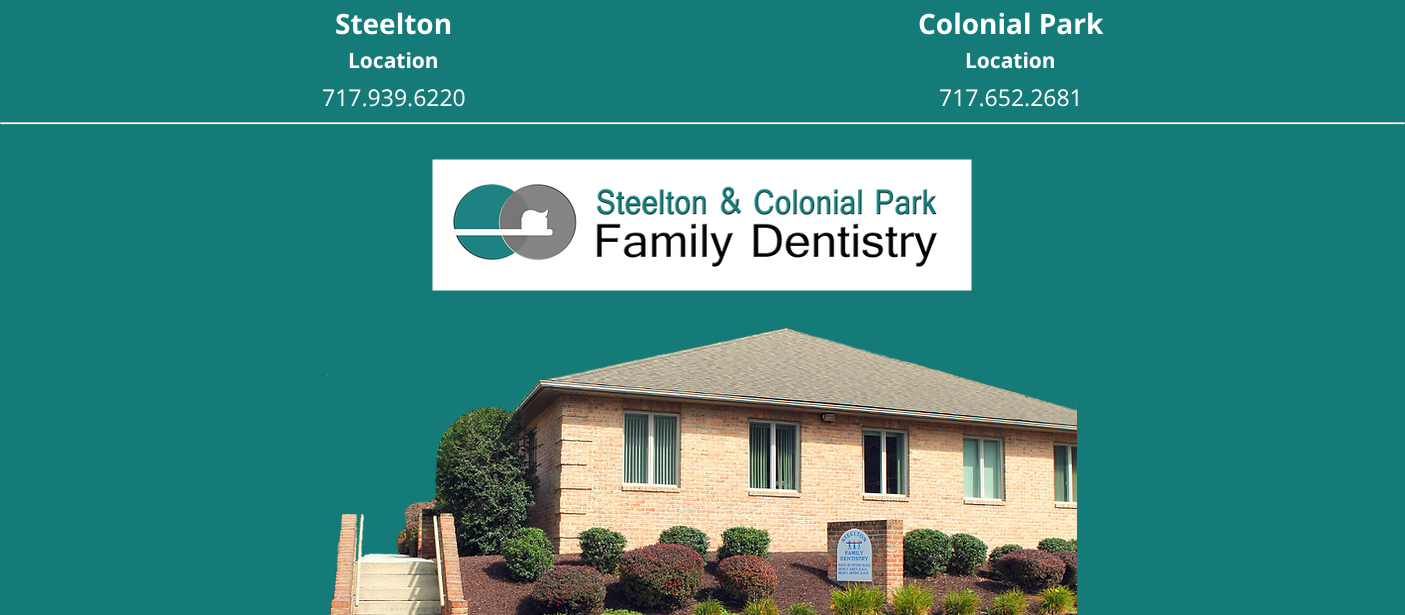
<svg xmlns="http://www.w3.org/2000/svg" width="1405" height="615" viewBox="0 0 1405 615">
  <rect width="100%" height="100%" fill="#147b78"/>
  <text x="335" y="34" font-family="Open Sans" font-size="28" font-weight="bold" fill="#ffffff">Steelton</text>
  <text x="918" y="34" font-family="Open Sans" font-size="28" font-weight="bold" fill="#ffffff">Colonial Park</text>
  <text x="348" y="68" font-family="Open Sans" font-size="21" font-weight="bold" fill="#ffffff">Location</text>
  <text x="965" y="68" font-family="Open Sans" font-size="21" font-weight="bold" fill="#ffffff">Location</text>
  <text x="322" y="106" font-family="Open Sans" font-size="23" fill="#ffffff">717.939.6220</text>
  <text x="939" y="106" font-family="Open Sans" font-size="23" fill="#ffffff">717.652.2681</text>
  <path d="M0 123C0 124 0 125 1 125H1404C1405 125 1405 124 1405 123L1404 124H1Z" fill="#2c8886"/>
  <rect x="0" y="122" width="1405" height="2" rx="1" fill="#ffffff"/>
  <path d="M1 123H1404L1405 124C1405 123 1405 122 1404 122H1C0 122 0 123 0 124Z" fill="#000000" fill-opacity="0.25"/>
  <rect x="432" y="159" width="540" height="132" fill="#ffffff"/>
  <path d="M973 158V292H431V158Z" fill="none" stroke="#147b78" stroke-width="3"/>
  <image x="453" y="184" width="485" height="83" href="img1.png"/>
  <image x="327" y="327" width="750" height="288" href="img2.png"/>
</svg>
